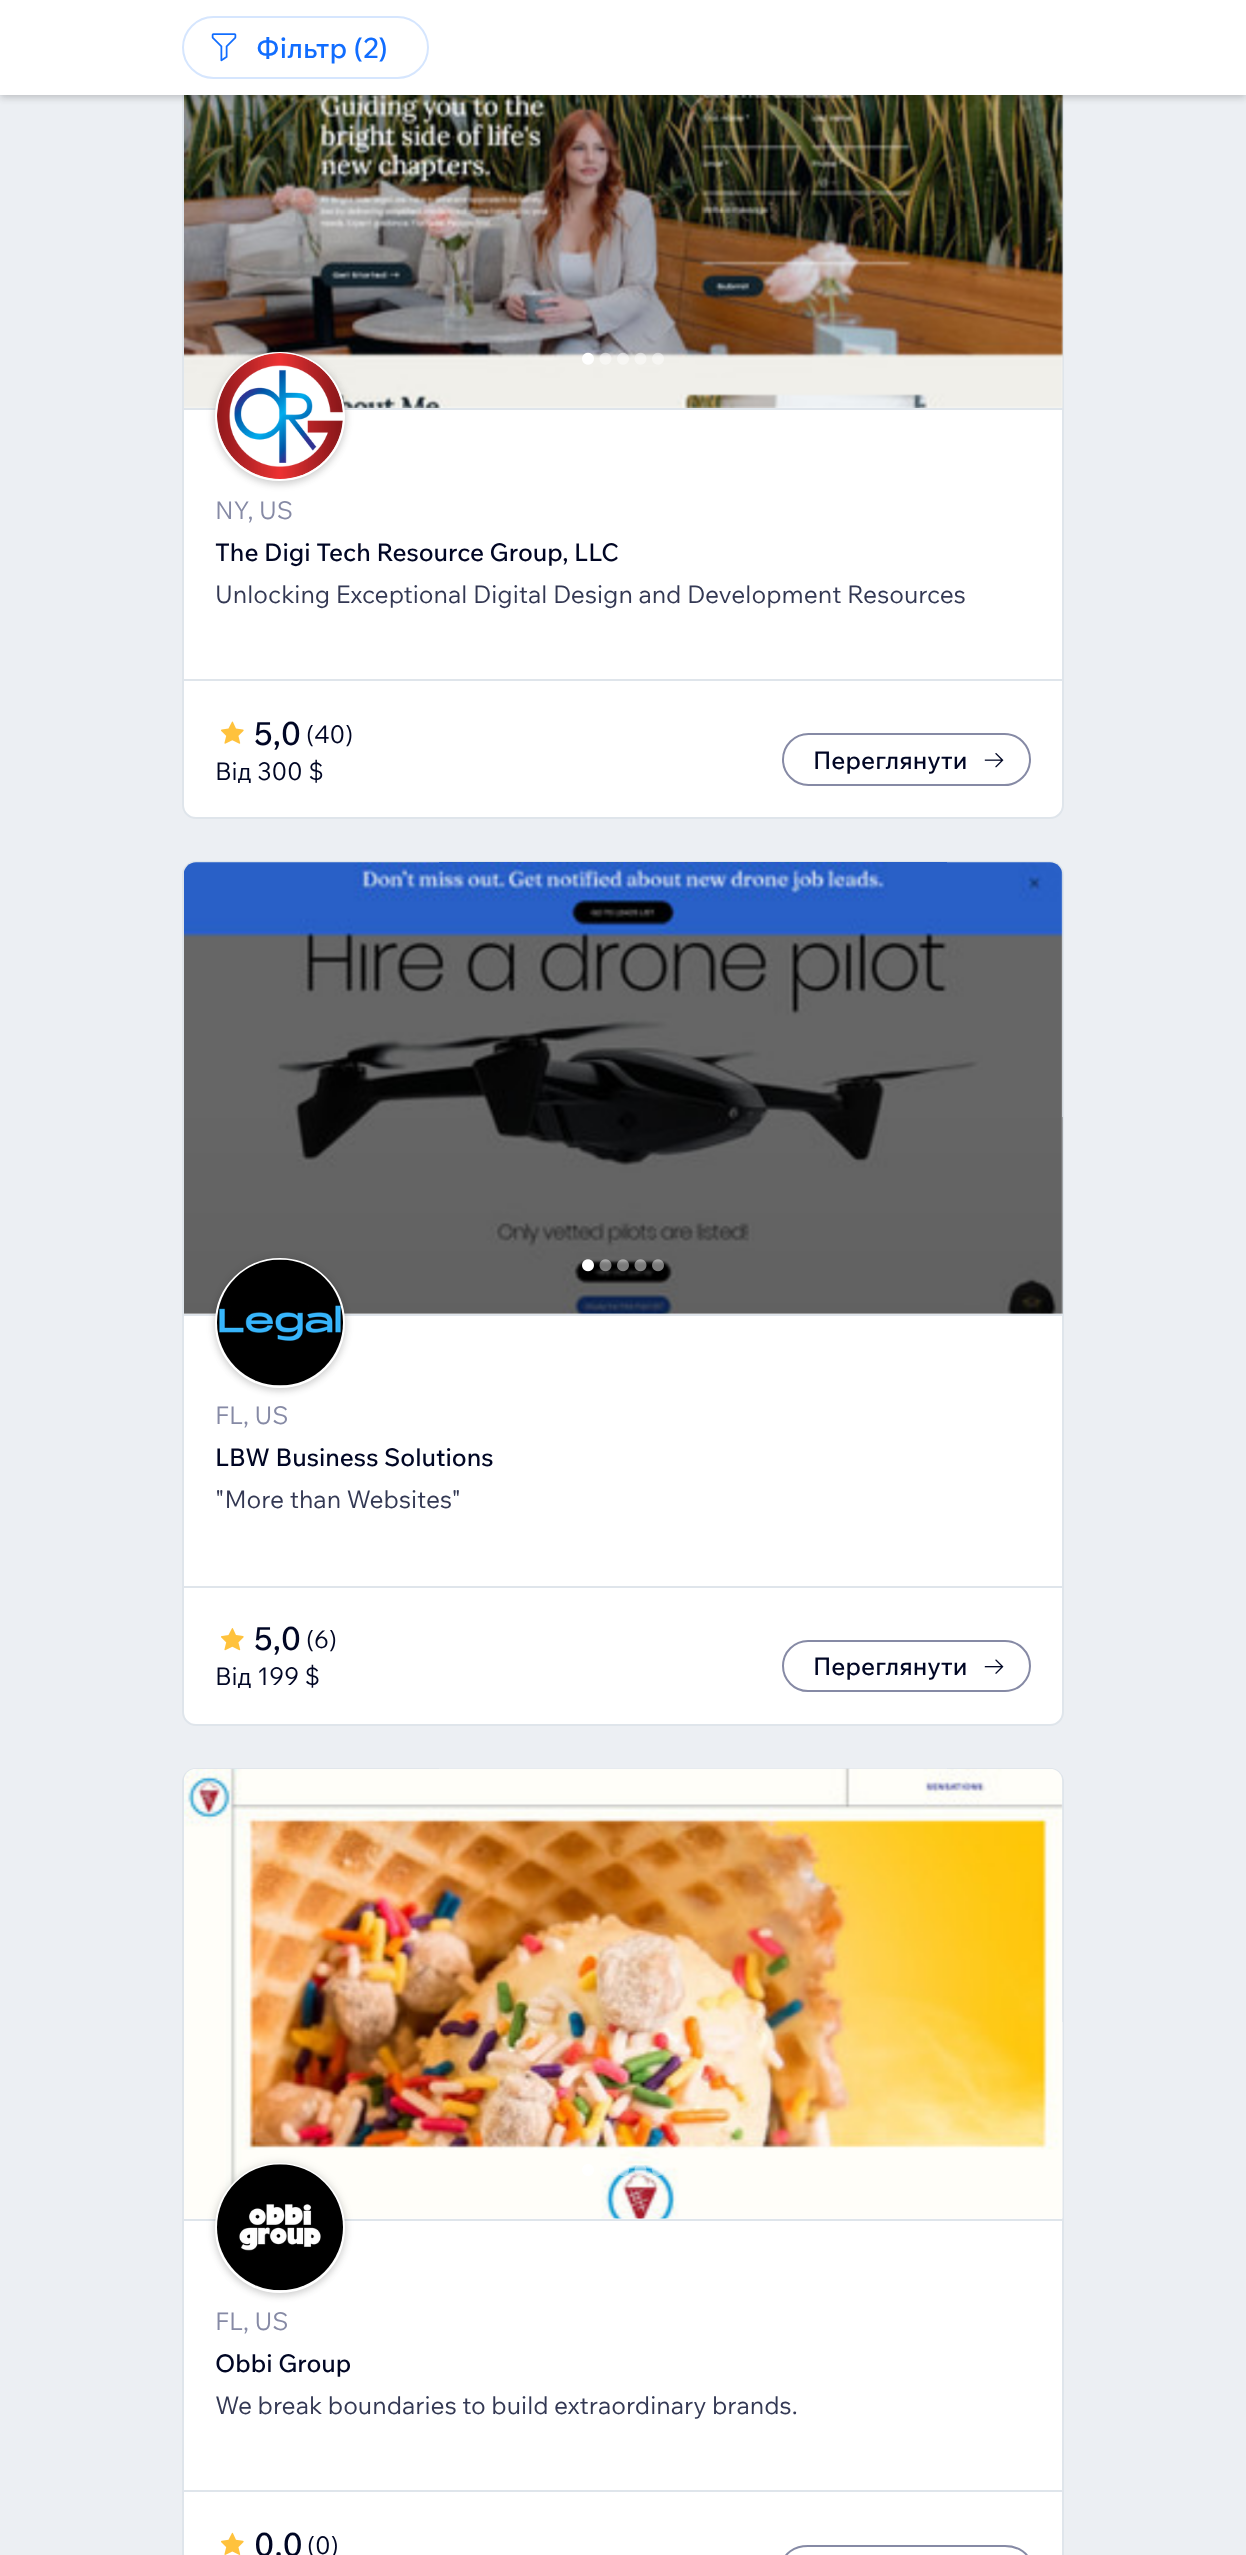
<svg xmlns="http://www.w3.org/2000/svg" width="1246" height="2555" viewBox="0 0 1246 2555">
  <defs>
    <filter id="blur1" x="-50%" y="-200%" width="200%" height="500%"><feGaussianBlur stdDeviation="3.5"/></filter>
    <filter id="blur2" x="-50%" y="-200%" width="200%" height="500%"><feGaussianBlur stdDeviation="5"/></filter>
  </defs>
  <rect width="100%" height="100%" fill="#eceff3"/>
  <rect x="183" y="-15" width="880" height="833" rx="13" fill="#ffffff" stroke="#dfe5eb" stroke-width="2"/>
  <image x="184" y="95" width="879" height="313" href="img2.png"/>
  <rect x="0" y="0" width="1246" height="98" fill="#000624" fill-opacity="0.12" filter="url(#blur1)"/>
  <rect x="0" y="-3" width="1246" height="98" fill="#000624" fill-opacity="0.12" filter="url(#blur2)"/>
  <rect x="0" y="0" width="1246" height="95" fill="#ffffff"/>
  <rect x="183" y="17" width="245" height="61" rx="30.5" fill="none" stroke="#d6e6fe" stroke-width="2"/>
  <image x="211" y="33" width="26" height="29" href="img1.png"/>
  <text x="256" y="58" font-family="Wix Madefor Text" font-size="28" font-weight="500" fill="#116dff">Фільтр (2)</text>
  <image x="582" y="352" width="12" height="13" href="img3.png"/>
  <image x="599" y="352" width="13" height="13" href="img4.png"/>
  <image x="617" y="352" width="12" height="13" href="img5.png"/>
  <image x="634" y="352" width="13" height="13" href="img6.png"/>
  <image x="652" y="352" width="12" height="13" href="img7.png"/>
  <rect x="184" y="408" width="878" height="2" fill="#dfe5eb"/>
  <rect x="215" y="355" width="130" height="130" rx="65" fill="#000624" fill-opacity="0.12" filter="url(#blur1)"/>
  <rect x="215" y="352" width="130" height="129" rx="64.5" fill="#000624" fill-opacity="0.12" filter="url(#blur2)"/>
  <rect x="216" y="353" width="128" height="127" rx="63.5" fill="#ffffff" stroke="#ffffff" stroke-width="2"/>
  <image x="217" y="353" width="126" height="126" href="img8.png"/>
  <text x="215" y="519" font-family="Wix Madefor Text" font-size="24.5" fill="#868aa5">NY, US</text>
  <text x="215" y="561" font-family="Wix Madefor Text" font-size="24.5" font-weight="500" fill="#000624">The Digi Tech Resource Group, LLC</text>
  <text x="215" y="603" font-family="Wix Madefor Text" font-size="24.5" fill="#333853">Unlocking Exceptional Digital Design and Development Resources</text>
  <rect x="184" y="679" width="878" height="2" fill="#dfe5eb"/>
  <image x="221" y="721" width="23" height="23" href="img9.png"/>
  <text x="254" y="745" font-family="Wix Madefor Text" font-size="32" font-weight="500" fill="#000624">5,0</text>
  <text x="306" y="743" font-family="Wix Madefor Text" font-size="24.5" fill="#000624">(40)</text>
  <text x="215" y="780" font-family="Wix Madefor Text" font-size="24.5" fill="#000624">Від 300 $</text>
  <rect x="783" y="734" width="247" height="51" rx="25.5" fill="none" stroke="#868aa5" stroke-width="2"/>
  <text x="813" y="769" font-family="Wix Madefor Text" font-size="24.5" font-weight="500" fill="#000624">Переглянути</text>
  <image x="984" y="753" width="20" height="15" href="img10.png"/>
  <rect x="183" y="862" width="880" height="863" rx="13" fill="#ffffff" stroke="#dfe5eb" stroke-width="2"/>
  <image x="184" y="862" width="879" height="452" href="img11.png"/>
  <image x="582" y="1259" width="12" height="13" href="img12.png"/>
  <image x="599" y="1259" width="13" height="13" href="img13.png"/>
  <image x="617" y="1259" width="12" height="13" href="img14.png"/>
  <image x="634" y="1259" width="13" height="13" href="img15.png"/>
  <image x="652" y="1259" width="12" height="13" href="img16.png"/>
  <rect x="184" y="1314" width="878" height="2" fill="#dfe5eb"/>
  <rect x="215" y="1262" width="130" height="129" rx="64.5" fill="#000624" fill-opacity="0.12" filter="url(#blur1)"/>
  <rect x="215" y="1258" width="130" height="130" rx="65" fill="#000624" fill-opacity="0.12" filter="url(#blur2)"/>
  <circle cx="280" cy="1323" r="64" fill="#ffffff" stroke="#ffffff" stroke-width="2"/>
  <image x="217" y="1259" width="126" height="127" href="img17.png"/>
  <text x="215" y="1424" font-family="Wix Madefor Text" font-size="24.5" fill="#868aa5">FL, US</text>
  <text x="215" y="1466" font-family="Wix Madefor Text" font-size="24.5" font-weight="500" fill="#000624">LBW Business Solutions</text>
  <text x="215" y="1508" font-family="Wix Madefor Text" font-size="24.5" fill="#333853">"More than Websites"</text>
  <rect x="184" y="1586" width="878" height="2" fill="#dfe5eb"/>
  <image x="221" y="1628" width="23" height="23" href="img18.png"/>
  <text x="254" y="1650" font-family="Wix Madefor Text" font-size="32" font-weight="500" fill="#000624">5,0</text>
  <text x="306" y="1648" font-family="Wix Madefor Text" font-size="24.5" fill="#000624">(6)</text>
  <text x="215" y="1685" font-family="Wix Madefor Text" font-size="24.5" fill="#000624">Від 199 $</text>
  <rect x="783" y="1641" width="247" height="50" rx="25" fill="none" stroke="#868aa5" stroke-width="2"/>
  <text x="813" y="1675" font-family="Wix Madefor Text" font-size="24.5" font-weight="500" fill="#000624">Переглянути</text>
  <image x="984" y="1659" width="20" height="15" href="img19.png"/>
  <rect x="183" y="1769" width="880" height="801" rx="13" fill="#ffffff" stroke="#dfe5eb" stroke-width="2"/>
  <image x="184" y="1768" width="879" height="451" href="img20.png"/>
  <image x="582" y="2164" width="12" height="12" href="img21.png"/>
  <image x="601" y="2167" width="10" height="9" href="img22.png"/>
  <image x="618" y="2166" width="11" height="10" href="img23.png"/>
  <image x="634" y="2165" width="13" height="11" href="img24.png"/>
  <image x="652" y="2164" width="12" height="12" href="img25.png"/>
  <rect x="184" y="2219" width="878" height="2" fill="#dfe5eb"/>
  <rect x="215" y="2167" width="130" height="129" rx="64.5" fill="#000624" fill-opacity="0.12" filter="url(#blur1)"/>
  <rect x="215" y="2163" width="130" height="130" rx="65" fill="#000624" fill-opacity="0.12" filter="url(#blur2)"/>
  <circle cx="280" cy="2228" r="64" fill="#ffffff" stroke="#ffffff" stroke-width="2"/>
  <image x="217" y="2164" width="126" height="127" href="img26.png"/>
  <text x="215" y="2330" font-family="Wix Madefor Text" font-size="24.5" fill="#868aa5">FL, US</text>
  <text x="215" y="2372" font-family="Wix Madefor Text" font-size="24.5" font-weight="500" fill="#000624">Obbi Group</text>
  <text x="215" y="2414" font-family="Wix Madefor Text" font-size="24.5" fill="#333853">We break boundaries to build extraordinary brands.</text>
  <rect x="184" y="2490" width="878" height="2" fill="#dfe5eb"/>
  <image x="221" y="2532" width="23" height="23" href="img27.png"/>
  <text x="254" y="2556" font-family="Wix Madefor Text" font-size="32" font-weight="500" fill="#000624">0,0</text>
  <text x="307" y="2554" font-family="Wix Madefor Text" font-size="24.5" fill="#000624">(0)</text>
  <rect x="783" y="2546" width="247" height="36" rx="25" fill="none" stroke="#868aa5" stroke-width="2"/>
</svg>
